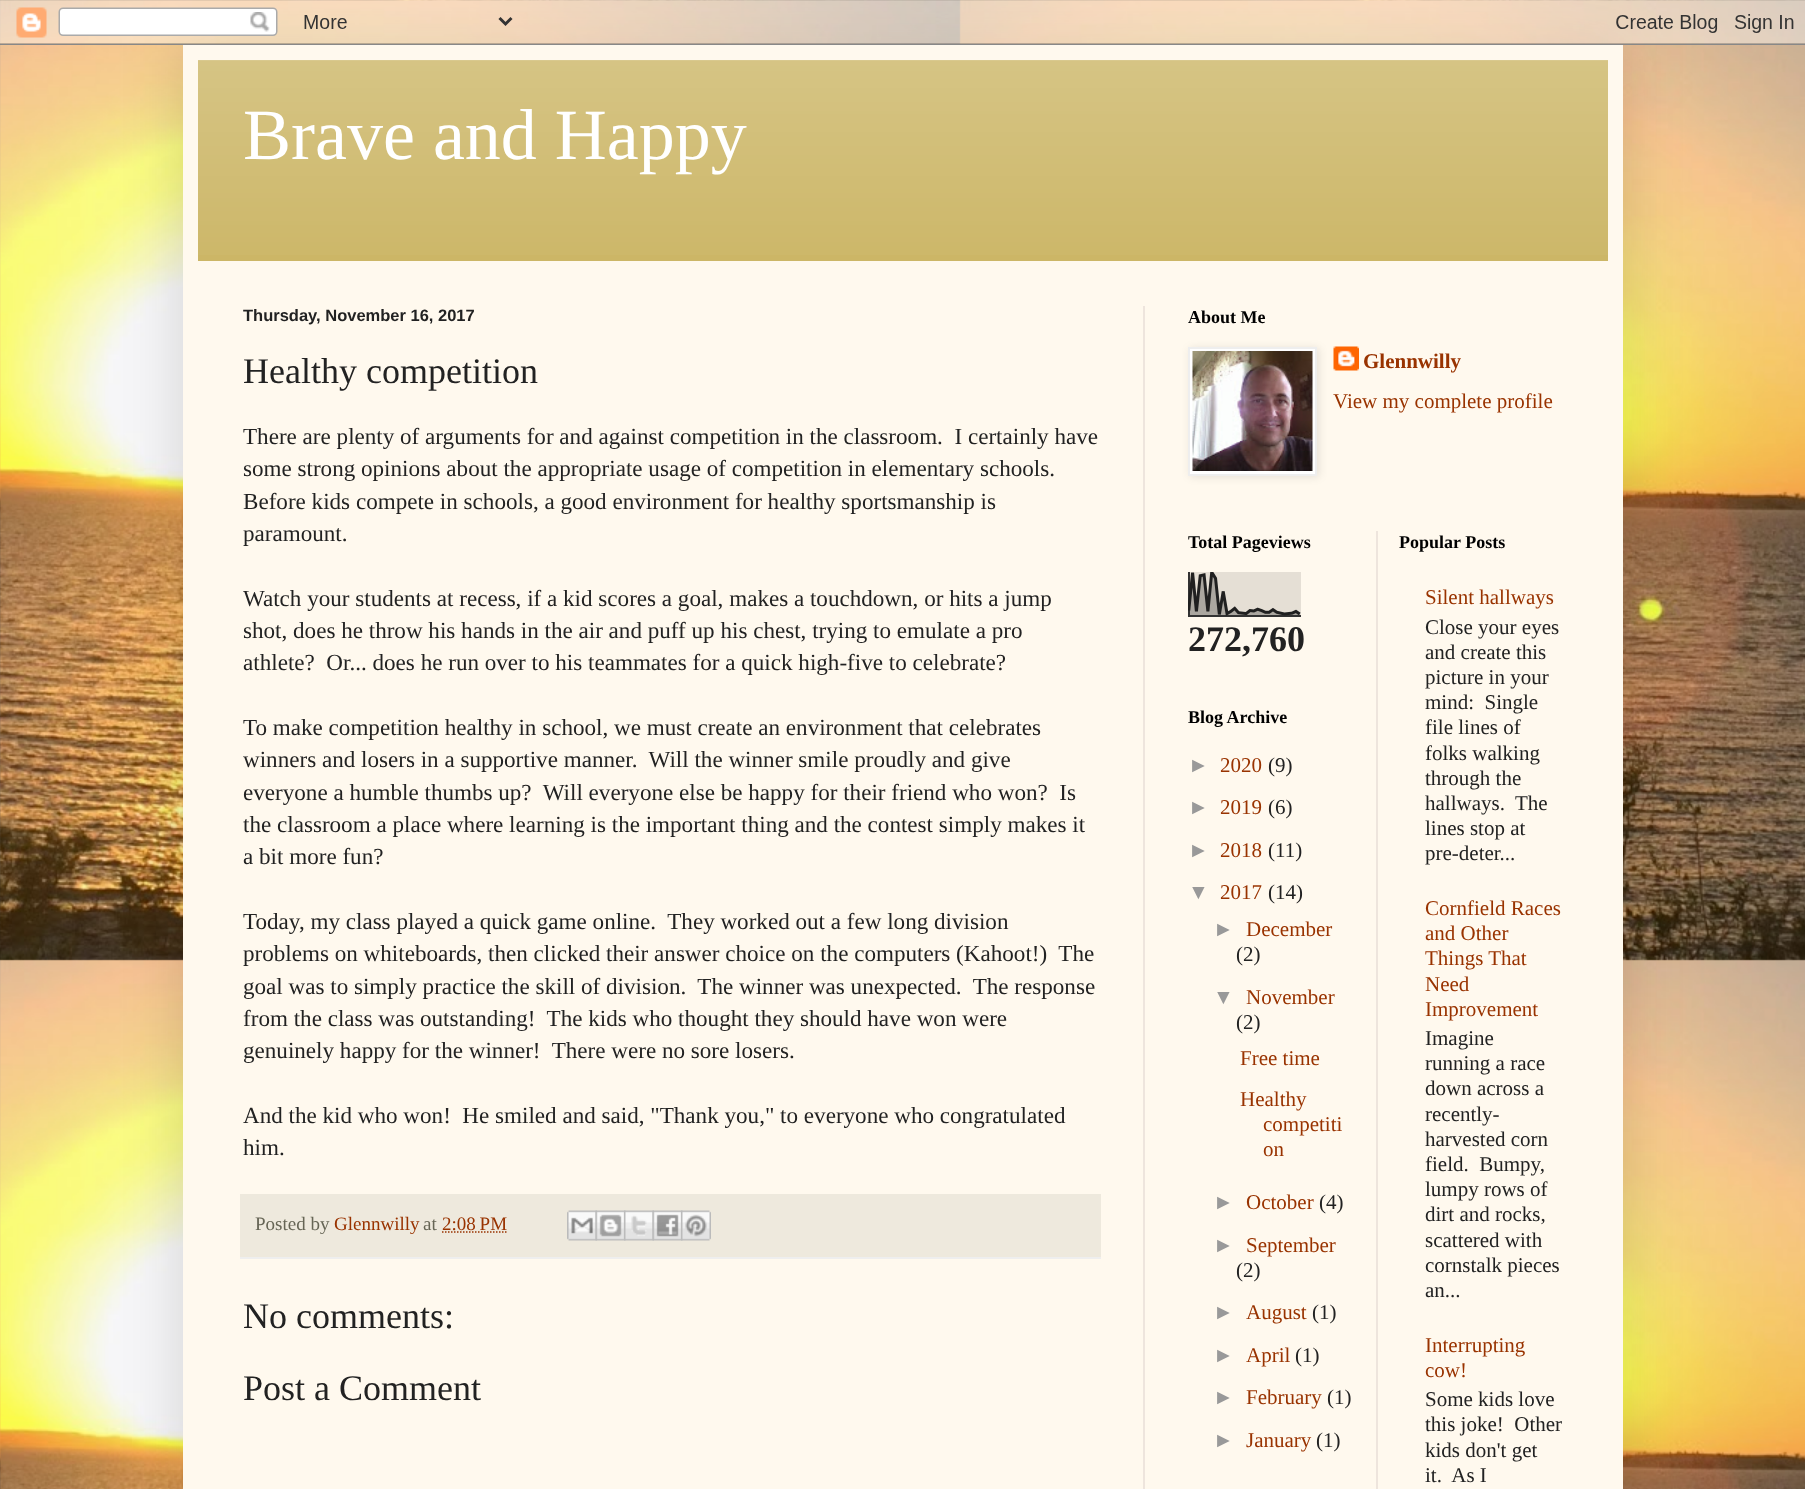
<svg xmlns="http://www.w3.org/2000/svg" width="1805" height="1489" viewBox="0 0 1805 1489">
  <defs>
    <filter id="blur1" x="-50%" y="-200%" width="200%" height="500%"><feGaussianBlur stdDeviation="30"/></filter>
    <filter id="blur2" x="-50%" y="-200%" width="200%" height="500%"><feGaussianBlur stdDeviation="4"/></filter>
  </defs>
  <rect width="100%" height="100%" fill="#ffffff"/>
  <image x="0" y="0" width="1805" height="1489" href="img1.png"/>
  <rect x="183" y="45" width="1440" height="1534" fill="#000000" fill-opacity="0.15" filter="url(#blur1)"/>
  <image x="0" y="0" width="1805" height="45" href="img2.png"/>
  <rect x="183" y="45" width="1440" height="1444" fill="#fff9ee"/>
  <rect x="198" y="60" width="1410" height="201" fill="#ccb666"/>
  <image x="198" y="60" width="1410" height="195" href="img3.png"/>
  <text x="243" y="159" font-family="Liberation Serif" font-size="72" fill="#ffffff">Brave and Happy</text>
  <rect x="1143" y="306" width="2" height="1183" fill="#eee5dd"/>
  <text x="243" y="321" font-family="Liberation Sans" font-size="16.5" font-weight="bold" fill="#222222">Thursday, November 16, 2017</text>
  <text x="243" y="383" font-family="Liberation Serif" font-size="36" fill="#222222">Healthy competition</text>
  <text x="243" y="444" font-family="Liberation Serif" font-size="23.1" fill="#222222" xml:space="preserve">There are plenty of arguments for and against competition in the classroom.  I certainly have</text>
  <text x="243" y="476" font-family="Liberation Serif" font-size="23.1" fill="#222222">some strong opinions about the appropriate usage of competition in elementary schools.</text>
  <text x="243" y="509" font-family="Liberation Serif" font-size="23.1" fill="#222222">Before kids compete in schools, a good environment for healthy sportsmanship is</text>
  <text x="243" y="541" font-family="Liberation Serif" font-size="23.1" fill="#222222">paramount.</text>
  <text x="243" y="606" font-family="Liberation Serif" font-size="23.1" fill="#222222">Watch your students at recess, if a kid scores a goal, makes a touchdown, or hits a jump</text>
  <text x="243" y="638" font-family="Liberation Serif" font-size="23.1" fill="#222222">shot, does he throw his hands in the air and puff up his chest, trying to emulate a pro</text>
  <text x="243" y="670" font-family="Liberation Serif" font-size="23.1" fill="#222222" xml:space="preserve">athlete?  Or... does he run over to his teammates for a quick high-five to celebrate?</text>
  <text x="243" y="735" font-family="Liberation Serif" font-size="23.1" fill="#222222">To make competition healthy in school, we must create an environment that celebrates</text>
  <text x="243" y="767" font-family="Liberation Serif" font-size="23.1" fill="#222222" xml:space="preserve">winners and losers in a supportive manner.  Will the winner smile proudly and give</text>
  <text x="243" y="800" font-family="Liberation Serif" font-size="23.1" fill="#222222" xml:space="preserve">everyone a humble thumbs up?  Will everyone else be happy for their friend who won?  Is</text>
  <text x="243" y="832" font-family="Liberation Serif" font-size="23.1" fill="#222222">the classroom a place where learning is the important thing and the contest simply makes it</text>
  <text x="243" y="864" font-family="Liberation Serif" font-size="23.1" fill="#222222">a bit more fun?</text>
  <text x="243" y="929" font-family="Liberation Serif" font-size="23.1" fill="#222222" xml:space="preserve">Today, my class played a quick game online.  They worked out a few long division</text>
  <text x="243" y="961" font-family="Liberation Serif" font-size="23.1" fill="#222222" xml:space="preserve">problems on whiteboards, then clicked their answer choice on the computers (Kahoot!)  The</text>
  <text x="243" y="994" font-family="Liberation Serif" font-size="23.1" fill="#222222" xml:space="preserve">goal was to simply practice the skill of division.  The winner was unexpected.  The response</text>
  <text x="243" y="1026" font-family="Liberation Serif" font-size="23.1" fill="#222222" xml:space="preserve">from the class was outstanding!  The kids who thought they should have won were</text>
  <text x="243" y="1058" font-family="Liberation Serif" font-size="23.1" fill="#222222" xml:space="preserve">genuinely happy for the winner!  There were no sore losers.</text>
  <text x="243" y="1123" font-family="Liberation Serif" font-size="23.1" fill="#222222" xml:space="preserve">And the kid who won!  He smiled and said, "Thank you," to everyone who congratulated</text>
  <text x="243" y="1155" font-family="Liberation Serif" font-size="23.1" fill="#222222">him.</text>
  <rect x="240" y="1194" width="861" height="63" fill="#eee9dd"/>
  <rect x="240" y="1257" width="861" height="2" fill="#eeeeee"/>
  <text x="255" y="1230" font-family="Liberation Serif" font-size="19" fill="#666555">Posted by</text>
  <text x="334" y="1230" font-family="Liberation Serif" font-size="19" fill="#993300">Glennwilly</text>
  <text x="423" y="1230" font-family="Liberation Serif" font-size="19" fill="#666555">at</text>
  <text x="442" y="1230" font-family="Liberation Serif" font-size="19" fill="#993300">2:08 PM</text>
  <path d="M442 1232H506.5" fill="none" stroke="#993300" stroke-width="1.5" stroke-dasharray="1.5 1.5"/>
  <image x="567" y="1210" width="30" height="31" href="img4.png"/>
  <image x="595" y="1210" width="31" height="31" href="img5.png"/>
  <image x="624" y="1210" width="30" height="31" href="img6.png"/>
  <image x="652" y="1210" width="31" height="31" href="img7.png"/>
  <image x="681" y="1210" width="30" height="31" href="img8.png"/>
  <text x="243" y="1328" font-family="Liberation Serif" font-size="36" fill="#222222">No comments:</text>
  <text x="243" y="1400" font-family="Liberation Serif" font-size="36" fill="#222222">Post a Comment</text>
  <text x="1188" y="323" font-family="Liberation Serif" font-size="18" font-weight="bold" fill="#000000">About Me</text>
  <rect x="1190" y="348" width="129" height="129" fill="#000000" fill-opacity="0.1" filter="url(#blur2)"/>
  <rect x="1189" y="348" width="127" height="127" fill="#ffffff" stroke="#eeeeee" stroke-width="2"/>
  <image x="1192" y="351" width="121" height="120" href="img9.png"/>
  <image x="1333" y="346" width="26" height="25" href="img10.png"/>
  <text x="1363" y="368" font-family="Liberation Serif" font-size="21" font-weight="bold" fill="#993300">Glennwilly</text>
  <text x="1333" y="408" font-family="Liberation Serif" font-size="21" fill="#993300">View my complete profile</text>
  <text x="1188" y="548" font-family="Liberation Serif" font-size="18" font-weight="bold" fill="#000000">Total Pageviews</text>
  <image x="1188" y="572" width="113" height="45" href="img11.png"/>
  <text x="1188" y="651" font-family="Liberation Serif" font-size="36" font-weight="bold" fill="#222222">272,760</text>
  <text x="1188" y="723" font-family="Liberation Serif" font-size="18" font-weight="bold" fill="#000000">Blog Archive</text>
  <text x="1188" y="772" font-family="Liberation Sans" font-size="21" fill="#999999">►</text>
  <text x="1220" y="772" font-family="Liberation Serif" font-size="21" fill="#993300">2020</text>
  <text x="1268" y="772" font-family="Liberation Serif" font-size="21" fill="#222222">(9)</text>
  <text x="1188" y="814" font-family="Liberation Sans" font-size="21" fill="#999999">►</text>
  <text x="1220" y="814" font-family="Liberation Serif" font-size="21" fill="#993300">2019</text>
  <text x="1268" y="814" font-family="Liberation Serif" font-size="21" fill="#222222">(6)</text>
  <text x="1188" y="857" font-family="Liberation Sans" font-size="21" fill="#999999">►</text>
  <text x="1220" y="857" font-family="Liberation Serif" font-size="21" fill="#993300">2018</text>
  <text x="1268" y="857" font-family="Liberation Serif" font-size="21" fill="#222222">(11)</text>
  <text x="1188" y="899" font-family="Liberation Sans" font-size="21" fill="#999999">▼</text>
  <text x="1220" y="899" font-family="Liberation Serif" font-size="21" fill="#993300">2017</text>
  <text x="1268" y="899" font-family="Liberation Serif" font-size="21" fill="#222222">(14)</text>
  <text x="1213" y="936" font-family="Liberation Sans" font-size="21" fill="#999999">►</text>
  <text x="1246" y="936" font-family="Liberation Serif" font-size="21" fill="#993300">December</text>
  <text x="1236" y="961" font-family="Liberation Serif" font-size="21" fill="#222222">(2)</text>
  <text x="1213" y="1004" font-family="Liberation Sans" font-size="21" fill="#999999">▼</text>
  <text x="1246" y="1004" font-family="Liberation Serif" font-size="21" fill="#993300">November</text>
  <text x="1236" y="1029" font-family="Liberation Serif" font-size="21" fill="#222222">(2)</text>
  <text x="1240" y="1065" font-family="Liberation Serif" font-size="21" fill="#993300">Free time</text>
  <text x="1240" y="1106" font-family="Liberation Serif" font-size="21" fill="#993300">Healthy</text>
  <text x="1263" y="1131" font-family="Liberation Serif" font-size="21" fill="#993300">competiti</text>
  <text x="1263" y="1156" font-family="Liberation Serif" font-size="21" fill="#993300">on</text>
  <text x="1213" y="1209" font-family="Liberation Sans" font-size="21" fill="#999999">►</text>
  <text x="1246" y="1209" font-family="Liberation Serif" font-size="21" fill="#993300">October</text>
  <text x="1319" y="1209" font-family="Liberation Serif" font-size="21" fill="#222222">(4)</text>
  <text x="1213" y="1252" font-family="Liberation Sans" font-size="21" fill="#999999">►</text>
  <text x="1246" y="1252" font-family="Liberation Serif" font-size="21" fill="#993300">September</text>
  <text x="1236" y="1277" font-family="Liberation Serif" font-size="21" fill="#222222">(2)</text>
  <text x="1213" y="1319" font-family="Liberation Sans" font-size="21" fill="#999999">►</text>
  <text x="1246" y="1319" font-family="Liberation Serif" font-size="21" fill="#993300">August</text>
  <text x="1312" y="1319" font-family="Liberation Serif" font-size="21" fill="#222222">(1)</text>
  <text x="1213" y="1362" font-family="Liberation Sans" font-size="21" fill="#999999">►</text>
  <text x="1246" y="1362" font-family="Liberation Serif" font-size="21" fill="#993300">April</text>
  <text x="1295" y="1362" font-family="Liberation Serif" font-size="21" fill="#222222">(1)</text>
  <text x="1213" y="1404" font-family="Liberation Sans" font-size="21" fill="#999999">►</text>
  <text x="1246" y="1404" font-family="Liberation Serif" font-size="21" fill="#993300">February</text>
  <text x="1327" y="1404" font-family="Liberation Serif" font-size="21" fill="#222222">(1)</text>
  <text x="1213" y="1447" font-family="Liberation Sans" font-size="21" fill="#999999">►</text>
  <text x="1246" y="1447" font-family="Liberation Serif" font-size="21" fill="#993300">January</text>
  <text x="1316" y="1447" font-family="Liberation Serif" font-size="21" fill="#222222">(1)</text>
  <rect x="1376" y="531" width="2" height="958" fill="#eee5dd"/>
  <text x="1399" y="548" font-family="Liberation Serif" font-size="18" font-weight="bold" fill="#000000">Popular Posts</text>
  <text x="1425" y="604" font-family="Liberation Serif" font-size="21" fill="#993300">Silent hallways</text>
  <text x="1425" y="634" font-family="Liberation Serif" font-size="21" fill="#222222">Close your eyes</text>
  <text x="1425" y="659" font-family="Liberation Serif" font-size="21" fill="#222222">and create this</text>
  <text x="1425" y="684" font-family="Liberation Serif" font-size="21" fill="#222222">picture in your</text>
  <text x="1425" y="709" font-family="Liberation Serif" font-size="21" fill="#222222" xml:space="preserve">mind:  Single</text>
  <text x="1425" y="734" font-family="Liberation Serif" font-size="21" fill="#222222">file lines of</text>
  <text x="1425" y="760" font-family="Liberation Serif" font-size="21" fill="#222222">folks walking</text>
  <text x="1425" y="785" font-family="Liberation Serif" font-size="21" fill="#222222">through the</text>
  <text x="1425" y="810" font-family="Liberation Serif" font-size="21" fill="#222222" xml:space="preserve">hallways.  The</text>
  <text x="1425" y="835" font-family="Liberation Serif" font-size="21" fill="#222222">lines stop at</text>
  <text x="1425" y="860" font-family="Liberation Serif" font-size="21" fill="#222222">pre-deter...</text>
  <text x="1425" y="915" font-family="Liberation Serif" font-size="21" fill="#993300">Cornfield Races</text>
  <text x="1425" y="940" font-family="Liberation Serif" font-size="21" fill="#993300">and Other</text>
  <text x="1425" y="965" font-family="Liberation Serif" font-size="21" fill="#993300">Things That</text>
  <text x="1425" y="991" font-family="Liberation Serif" font-size="21" fill="#993300">Need</text>
  <text x="1425" y="1016" font-family="Liberation Serif" font-size="21" fill="#993300">Improvement</text>
  <text x="1425" y="1045" font-family="Liberation Serif" font-size="21" fill="#222222">Imagine</text>
  <text x="1425" y="1070" font-family="Liberation Serif" font-size="21" fill="#222222">running a race</text>
  <text x="1425" y="1095" font-family="Liberation Serif" font-size="21" fill="#222222">down across a</text>
  <text x="1425" y="1121" font-family="Liberation Serif" font-size="21" fill="#222222">recently-</text>
  <text x="1425" y="1146" font-family="Liberation Serif" font-size="21" fill="#222222">harvested corn</text>
  <text x="1425" y="1171" font-family="Liberation Serif" font-size="21" fill="#222222" xml:space="preserve">field.  Bumpy,</text>
  <text x="1425" y="1196" font-family="Liberation Serif" font-size="21" fill="#222222">lumpy rows of</text>
  <text x="1425" y="1221" font-family="Liberation Serif" font-size="21" fill="#222222">dirt and rocks,</text>
  <text x="1425" y="1247" font-family="Liberation Serif" font-size="21" fill="#222222">scattered with</text>
  <text x="1425" y="1272" font-family="Liberation Serif" font-size="21" fill="#222222">cornstalk pieces</text>
  <text x="1425" y="1297" font-family="Liberation Serif" font-size="21" fill="#222222">an...</text>
  <text x="1425" y="1352" font-family="Liberation Serif" font-size="21" fill="#993300">Interrupting</text>
  <text x="1425" y="1377" font-family="Liberation Serif" font-size="21" fill="#993300">cow!</text>
  <text x="1425" y="1406" font-family="Liberation Serif" font-size="21" fill="#222222">Some kids love</text>
  <text x="1425" y="1431" font-family="Liberation Serif" font-size="21" fill="#222222" xml:space="preserve">this joke!  Other</text>
  <text x="1425" y="1457" font-family="Liberation Serif" font-size="21" fill="#222222">kids don't get</text>
  <text x="1425" y="1482" font-family="Liberation Serif" font-size="21" fill="#222222" xml:space="preserve">it.  As I</text>
</svg>
